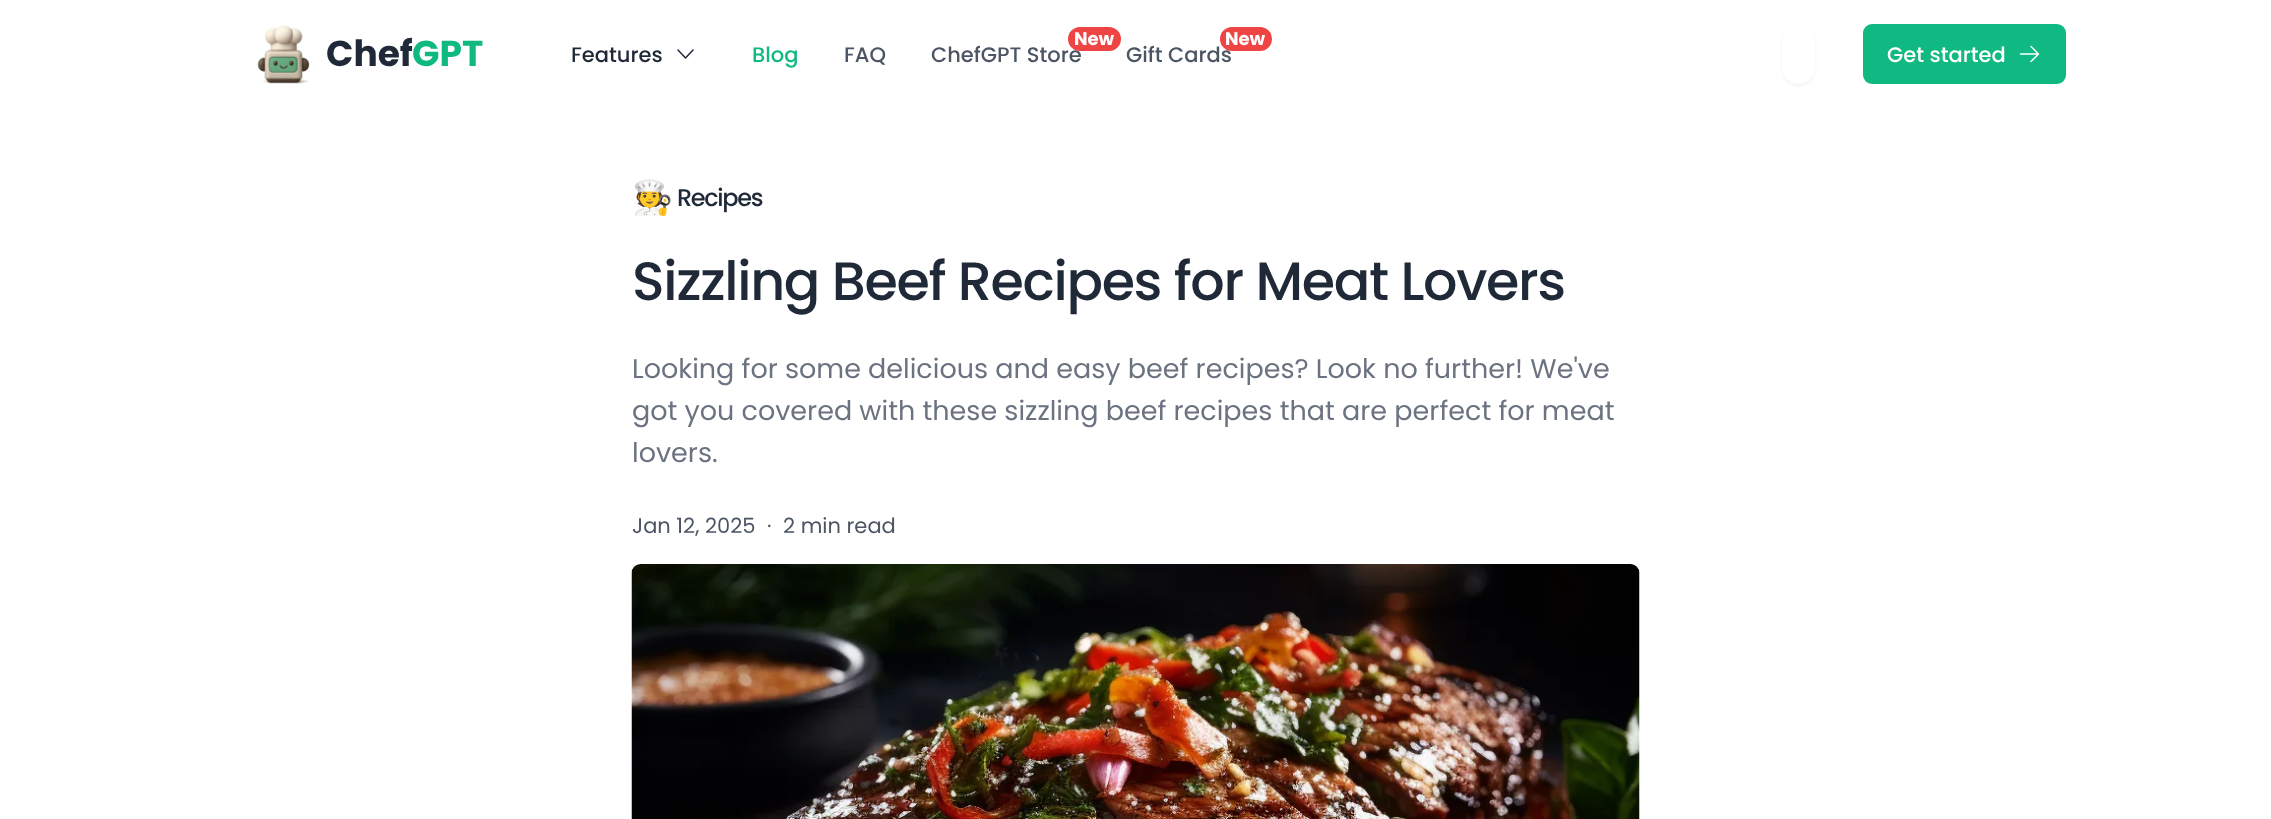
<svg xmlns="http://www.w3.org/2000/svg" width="2271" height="819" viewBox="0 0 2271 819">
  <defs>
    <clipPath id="clip1"><path d="M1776 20H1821V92H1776ZM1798.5 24C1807.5 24 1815 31.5 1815 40.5V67.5C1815 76.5 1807.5 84 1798.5 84C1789.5 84 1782 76.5 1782 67.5V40.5C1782 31.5 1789.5 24 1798.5 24Z" clip-rule="evenodd"/></clipPath>
    <filter id="blur1" x="-50%" y="-200%" width="200%" height="500%"><feGaussianBlur stdDeviation="1.5"/></filter>
  </defs>
  <rect width="100%" height="100%" fill="#ffffff"/>
  <image x="257" y="25" width="53" height="59" href="img1.png"/>
  <text x="326" y="66" font-family="Poppins" font-size="36" font-weight="bold" fill="#1f2937">Chef</text>
  <text x="412" y="66" font-family="Poppins" font-size="36" font-weight="bold" fill="#10b981">GPT</text>
  <text x="571" y="62" font-family="Poppins" font-size="21" font-weight="500" fill="#1f2937">Features</text>
  <path d="M693 50L685.5 58L678 50" fill="none" stroke="#1f2937" stroke-width="1.5" stroke-linecap="round" stroke-linejoin="round"/>
  <text x="752" y="62" font-family="Poppins" font-size="21" font-weight="500" fill="#10b981">Blog</text>
  <text x="844" y="62" font-family="Poppins" font-size="21" font-weight="500" fill="#4b5563">FAQ</text>
  <text x="931" y="62" font-family="Poppins" font-size="21" font-weight="500" fill="#4b5563">ChefGPT Store</text>
  <rect x="1068" y="27" width="53" height="24" rx="12" fill="#ef4444"/>
  <text x="1074" y="45" font-family="Poppins" font-size="18" font-weight="bold" fill="#ffffff">New</text>
  <text x="1126" y="62" font-family="Poppins" font-size="21" font-weight="500" fill="#4b5563">Gift Cards</text>
  <rect x="1220" y="27" width="52" height="24" rx="12" fill="#ef4444"/>
  <text x="1225" y="45" font-family="Poppins" font-size="18" font-weight="bold" fill="#ffffff">New</text>
  <g clip-path="url(#clip1)">
    <rect x="1782" y="26" width="33" height="60" rx="16.5" fill="#000000" fill-opacity="0.05" filter="url(#blur1)"/>
  </g>
  <rect x="1863" y="24" width="203" height="60" rx="9" fill="#10b981"/>
  <text x="1887" y="62" font-family="Poppins" font-size="21" font-weight="500" fill="#ffffff">Get started</text>
  <path d="M2031 46.5L2038.5 54M2038.5 54L2031 61.5M2038.5 54H2020.5" fill="none" stroke="#ffffff" stroke-width="1.5" stroke-linecap="round" stroke-linejoin="round"/>
  <text x="632" y="209" font-family="Noto Color Emoji" font-size="33" letter-spacing="-1.35" fill="#1f2937">🧑‍🍳</text>
  <text x="677" y="206" font-family="Poppins" font-size="24" font-weight="500" letter-spacing="-1.35" fill="#1f2937">Recipes</text>
  <text x="632" y="300" font-family="Poppins" font-size="54" font-weight="500" letter-spacing="-1.35" fill="#1f2937">Sizzling Beef Recipes for Meat Lovers</text>
  <text x="632" y="378" font-family="Poppins" font-size="27" fill="#6b7280">Looking for some delicious and easy beef recipes? Look no further! We've</text>
  <text x="632" y="420" font-family="Poppins" font-size="27" fill="#6b7280">got you covered with these sizzling beef recipes that are perfect for meat</text>
  <text x="632" y="462" font-family="Poppins" font-size="27" fill="#6b7280">lovers.</text>
  <text x="632" y="533" font-family="Poppins" font-size="21" fill="#4b5563">Jan 12, 2025</text>
  <text x="767" y="533" font-family="Poppins" font-size="21" fill="#4b5563">·</text>
  <text x="783" y="533" font-family="Poppins" font-size="21" fill="#4b5563">2 min read</text>
  <image x="631" y="564" width="1009" height="255" href="img2.png"/>
</svg>
